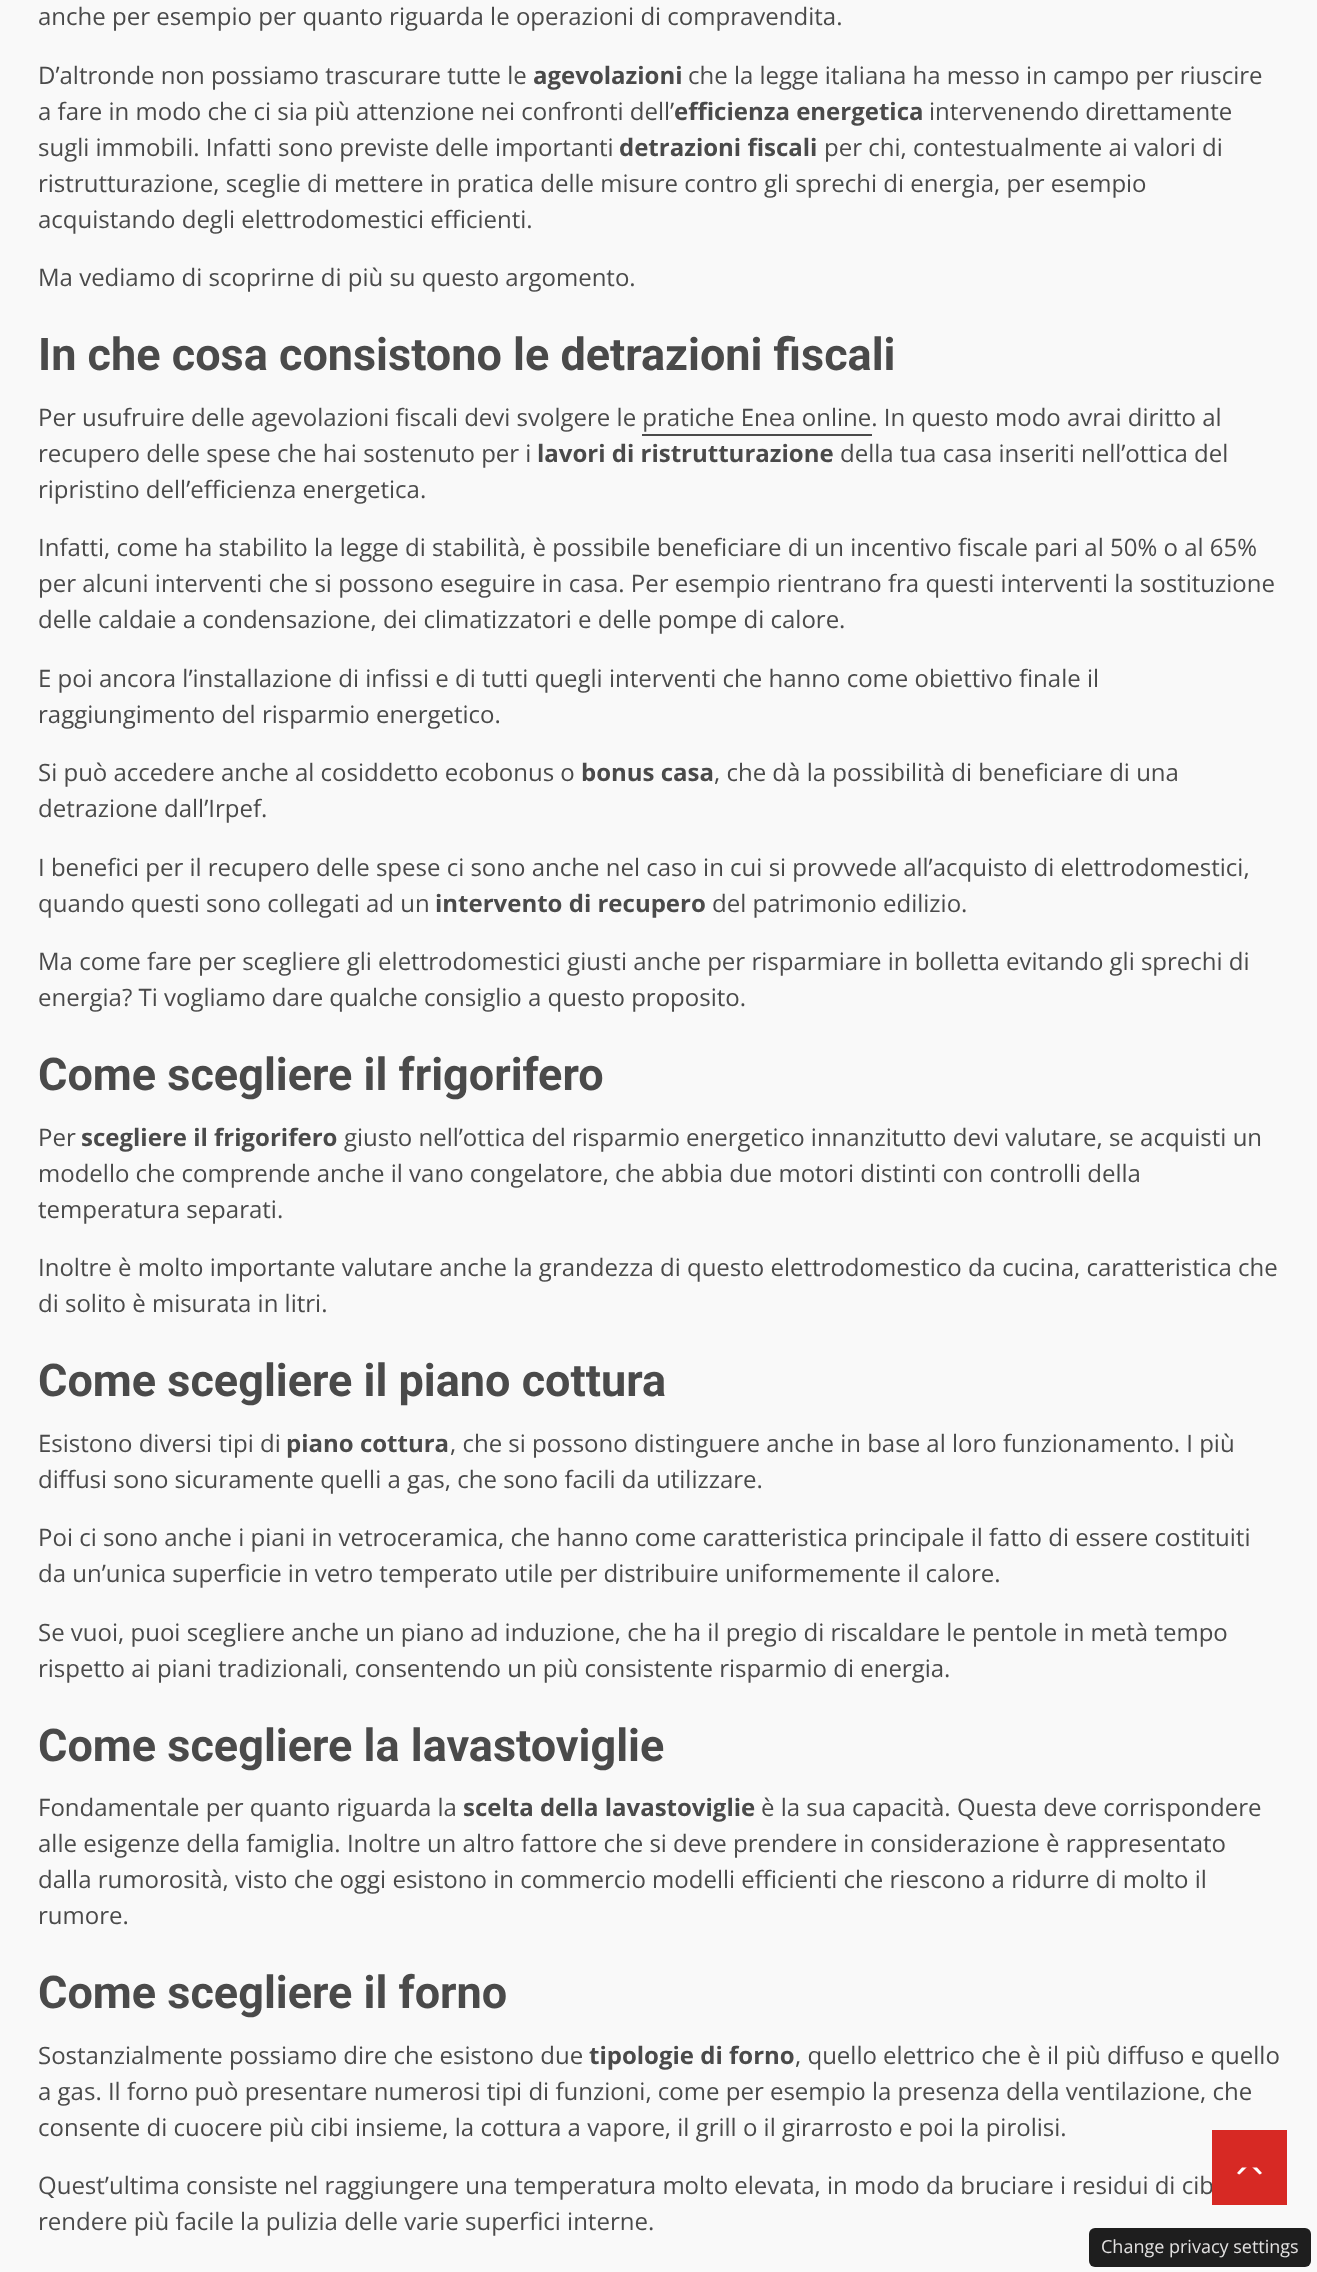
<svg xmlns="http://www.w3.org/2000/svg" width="1317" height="2272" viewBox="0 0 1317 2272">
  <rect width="100%" height="100%" fill="#f9f9f9"/>
  <text x="38" y="25" font-family="Open Sans" font-size="24" fill="#4a4a4a">anche per esempio per quanto riguarda le operazioni di compravendita.</text>
  <text x="38" y="84" font-family="Open Sans" font-size="24" fill="#4a4a4a">D’altronde non possiamo trascurare tutte le</text>
  <text x="533" y="84" font-family="Open Sans" font-size="24" font-weight="bold" fill="#4a4a4a">agevolazioni</text>
  <text x="688" y="84" font-family="Open Sans" font-size="24" fill="#4a4a4a">che la legge italiana ha messo in campo per riuscire</text>
  <text x="38" y="120" font-family="Open Sans" font-size="24" fill="#4a4a4a">a fare in modo che ci sia più attenzione nei confronti dell’</text>
  <text x="674" y="120" font-family="Open Sans" font-size="24" font-weight="bold" fill="#4a4a4a">efficienza energetica</text>
  <text x="929" y="120" font-family="Open Sans" font-size="24" fill="#4a4a4a">intervenendo direttamente</text>
  <text x="38" y="156" font-family="Open Sans" font-size="24" fill="#4a4a4a">sugli immobili. Infatti sono previste delle importanti</text>
  <text x="619" y="156" font-family="Open Sans" font-size="24" font-weight="bold" fill="#4a4a4a">detrazioni fiscali</text>
  <text x="824" y="156" font-family="Open Sans" font-size="24" fill="#4a4a4a">per chi, contestualmente ai valori di</text>
  <text x="38" y="192" font-family="Open Sans" font-size="24" fill="#4a4a4a">ristrutturazione, sceglie di mettere in pratica delle misure contro gli sprechi di energia, per esempio</text>
  <text x="38" y="228" font-family="Open Sans" font-size="24" fill="#4a4a4a">acquistando degli elettrodomestici efficienti.</text>
  <text x="38" y="286" font-family="Open Sans" font-size="24" fill="#4a4a4a">Ma vediamo di scoprirne di più su questo argomento.</text>
  <text x="38" y="370" font-family="Roboto" font-size="45" font-weight="bold" fill="#4a4a4a">In che cosa consistono le detrazioni fiscali</text>
  <text x="38" y="426" font-family="Open Sans" font-size="24" fill="#4a4a4a">Per usufruire delle agevolazioni fiscali devi svolgere le pratiche Enea online. In questo modo avrai diritto al</text>
  <rect x="642" y="434" width="230" height="2" fill="#4a4a4a"/>
  <text x="38" y="462" font-family="Open Sans" font-size="24" fill="#4a4a4a">recupero delle spese che hai sostenuto per i</text>
  <text x="537" y="462" font-family="Open Sans" font-size="24" font-weight="bold" fill="#4a4a4a">lavori di ristrutturazione</text>
  <text x="840" y="462" font-family="Open Sans" font-size="24" fill="#4a4a4a">della tua casa inseriti nell’ottica del</text>
  <text x="38" y="498" font-family="Open Sans" font-size="24" fill="#4a4a4a">ripristino dell’efficienza energetica.</text>
  <text x="38" y="556" font-family="Open Sans" font-size="24" fill="#4a4a4a">Infatti, come ha stabilito la legge di stabilità, è possibile beneficiare di un incentivo fiscale pari al 50% o al 65%</text>
  <text x="38" y="592" font-family="Open Sans" font-size="24" fill="#4a4a4a">per alcuni interventi che si possono eseguire in casa. Per esempio rientrano fra questi interventi la sostituzione</text>
  <text x="38" y="628" font-family="Open Sans" font-size="24" fill="#4a4a4a">delle caldaie a condensazione, dei climatizzatori e delle pompe di calore.</text>
  <text x="38" y="687" font-family="Open Sans" font-size="24" fill="#4a4a4a">E poi ancora l’installazione di infissi e di tutti quegli interventi che hanno come obiettivo finale il</text>
  <text x="38" y="723" font-family="Open Sans" font-size="24" fill="#4a4a4a">raggiungimento del risparmio energetico.</text>
  <text x="38" y="781" font-family="Open Sans" font-size="24" fill="#4a4a4a">Si può accedere anche al cosiddetto ecobonus o</text>
  <text x="581" y="781" font-family="Open Sans" font-size="24" font-weight="bold" fill="#4a4a4a">bonus casa</text>
  <text x="714" y="781" font-family="Open Sans" font-size="24" fill="#4a4a4a">, che dà la possibilità di beneficiare di una</text>
  <text x="38" y="817" font-family="Open Sans" font-size="24" fill="#4a4a4a">detrazione dall’Irpef.</text>
  <text x="38" y="876" font-family="Open Sans" font-size="24" fill="#4a4a4a">I benefici per il recupero delle spese ci sono anche nel caso in cui si provvede all’acquisto di elettrodomestici,</text>
  <text x="38" y="912" font-family="Open Sans" font-size="24" fill="#4a4a4a">quando questi sono collegati ad un</text>
  <text x="435" y="912" font-family="Open Sans" font-size="24" font-weight="bold" fill="#4a4a4a">intervento di recupero</text>
  <text x="712" y="912" font-family="Open Sans" font-size="24" fill="#4a4a4a">del patrimonio edilizio.</text>
  <text x="38" y="970" font-family="Open Sans" font-size="24" fill="#4a4a4a">Ma come fare per scegliere gli elettrodomestici giusti anche per risparmiare in bolletta evitando gli sprechi di</text>
  <text x="38" y="1006" font-family="Open Sans" font-size="24" fill="#4a4a4a">energia? Ti vogliamo dare qualche consiglio a questo proposito.</text>
  <text x="38" y="1090" font-family="Roboto" font-size="45" font-weight="bold" fill="#4a4a4a">Come scegliere il frigorifero</text>
  <text x="38" y="1146" font-family="Open Sans" font-size="24" fill="#4a4a4a">Per</text>
  <text x="81" y="1146" font-family="Open Sans" font-size="24" font-weight="bold" fill="#4a4a4a">scegliere il frigorifero</text>
  <text x="344" y="1146" font-family="Open Sans" font-size="24" fill="#4a4a4a">giusto nell’ottica del risparmio energetico innanzitutto devi valutare, se acquisti un</text>
  <text x="38" y="1182" font-family="Open Sans" font-size="24" fill="#4a4a4a">modello che comprende anche il vano congelatore, che abbia due motori distinti con controlli della</text>
  <text x="38" y="1218" font-family="Open Sans" font-size="24" fill="#4a4a4a">temperatura separati.</text>
  <text x="38" y="1276" font-family="Open Sans" font-size="24" fill="#4a4a4a">Inoltre è molto importante valutare anche la grandezza di questo elettrodomestico da cucina, caratteristica che</text>
  <text x="38" y="1312" font-family="Open Sans" font-size="24" fill="#4a4a4a">di solito è misurata in litri.</text>
  <text x="38" y="1396" font-family="Roboto" font-size="45" font-weight="bold" fill="#4a4a4a">Come scegliere il piano cottura</text>
  <text x="38" y="1452" font-family="Open Sans" font-size="24" fill="#4a4a4a">Esistono diversi tipi di</text>
  <text x="286" y="1452" font-family="Open Sans" font-size="24" font-weight="bold" fill="#4a4a4a">piano cottura</text>
  <text x="450" y="1452" font-family="Open Sans" font-size="24" fill="#4a4a4a">, che si possono distinguere anche in base al loro funzionamento. I più</text>
  <text x="38" y="1488" font-family="Open Sans" font-size="24" fill="#4a4a4a">diffusi sono sicuramente quelli a gas, che sono facili da utilizzare.</text>
  <text x="38" y="1546" font-family="Open Sans" font-size="24" fill="#4a4a4a">Poi ci sono anche i piani in vetroceramica, che hanno come caratteristica principale il fatto di essere costituiti</text>
  <text x="38" y="1582" font-family="Open Sans" font-size="24" fill="#4a4a4a">da un’unica superficie in vetro temperato utile per distribuire uniformemente il calore.</text>
  <text x="38" y="1641" font-family="Open Sans" font-size="24" fill="#4a4a4a">Se vuoi, puoi scegliere anche un piano ad induzione, che ha il pregio di riscaldare le pentole in metà tempo</text>
  <text x="38" y="1677" font-family="Open Sans" font-size="24" fill="#4a4a4a">rispetto ai piani tradizionali, consentendo un più consistente risparmio di energia.</text>
  <text x="38" y="1761" font-family="Roboto" font-size="45" font-weight="bold" fill="#4a4a4a">Come scegliere la lavastoviglie</text>
  <text x="38" y="1816" font-family="Open Sans" font-size="24" fill="#4a4a4a">Fondamentale per quanto riguarda la</text>
  <text x="463" y="1816" font-family="Open Sans" font-size="24" font-weight="bold" fill="#4a4a4a">scelta della lavastoviglie</text>
  <text x="761" y="1816" font-family="Open Sans" font-size="24" fill="#4a4a4a">è la sua capacità. Questa deve corrispondere</text>
  <text x="38" y="1852" font-family="Open Sans" font-size="24" fill="#4a4a4a">alle esigenze della famiglia. Inoltre un altro fattore che si deve prendere in considerazione è rappresentato</text>
  <text x="38" y="1888" font-family="Open Sans" font-size="24" fill="#4a4a4a">dalla rumorosità, visto che oggi esistono in commercio modelli efficienti che riescono a ridurre di molto il</text>
  <text x="38" y="1924" font-family="Open Sans" font-size="24" fill="#4a4a4a">rumore.</text>
  <text x="38" y="2008" font-family="Roboto" font-size="45" font-weight="bold" fill="#4a4a4a">Come scegliere il forno</text>
  <text x="38" y="2064" font-family="Open Sans" font-size="24" fill="#4a4a4a">Sostanzialmente possiamo dire che esistono due</text>
  <text x="589" y="2064" font-family="Open Sans" font-size="24" font-weight="bold" fill="#4a4a4a">tipologie di forno</text>
  <text x="795" y="2064" font-family="Open Sans" font-size="24" fill="#4a4a4a">, quello elettrico che è il più diffuso e quello</text>
  <text x="38" y="2100" font-family="Open Sans" font-size="24" fill="#4a4a4a">a gas. Il forno può presentare numerosi tipi di funzioni, come per esempio la presenza della ventilazione, che</text>
  <text x="38" y="2136" font-family="Open Sans" font-size="24" fill="#4a4a4a">consente di cuocere più cibi insieme, la cottura a vapore, il grill o il girarrosto e poi la pirolisi.</text>
  <text x="38" y="2194" font-family="Open Sans" font-size="24" fill="#4a4a4a">Quest’ultima consiste nel raggiungere una temperatura molto elevata, in modo da bruciare i residui di cib</text>
  <text x="38" y="2230" font-family="Open Sans" font-size="24" fill="#4a4a4a">rendere più facile la pulizia delle varie superfici interne.</text>
  <rect x="1212" y="2130" width="75" height="75" fill="#d72924"/>
  <path d="M1242 2175H1257C1259 2175 1261 2174 1262 2173L1257 2167.5H1242L1237 2173C1238 2174 1240 2175 1242 2175Z" fill="#ffffff"/>
  <path d="M1264.5 2179.5H1234.5L1249.5 2164.5Z" fill="#d72924"/>
  <rect x="1089" y="2228" width="222" height="39" rx="6" fill="#1e1e1e"/>
  <text x="1101" y="2253" font-family="Open Sans" font-size="18" fill="#e3e1e1">Change privacy settings</text>
</svg>
